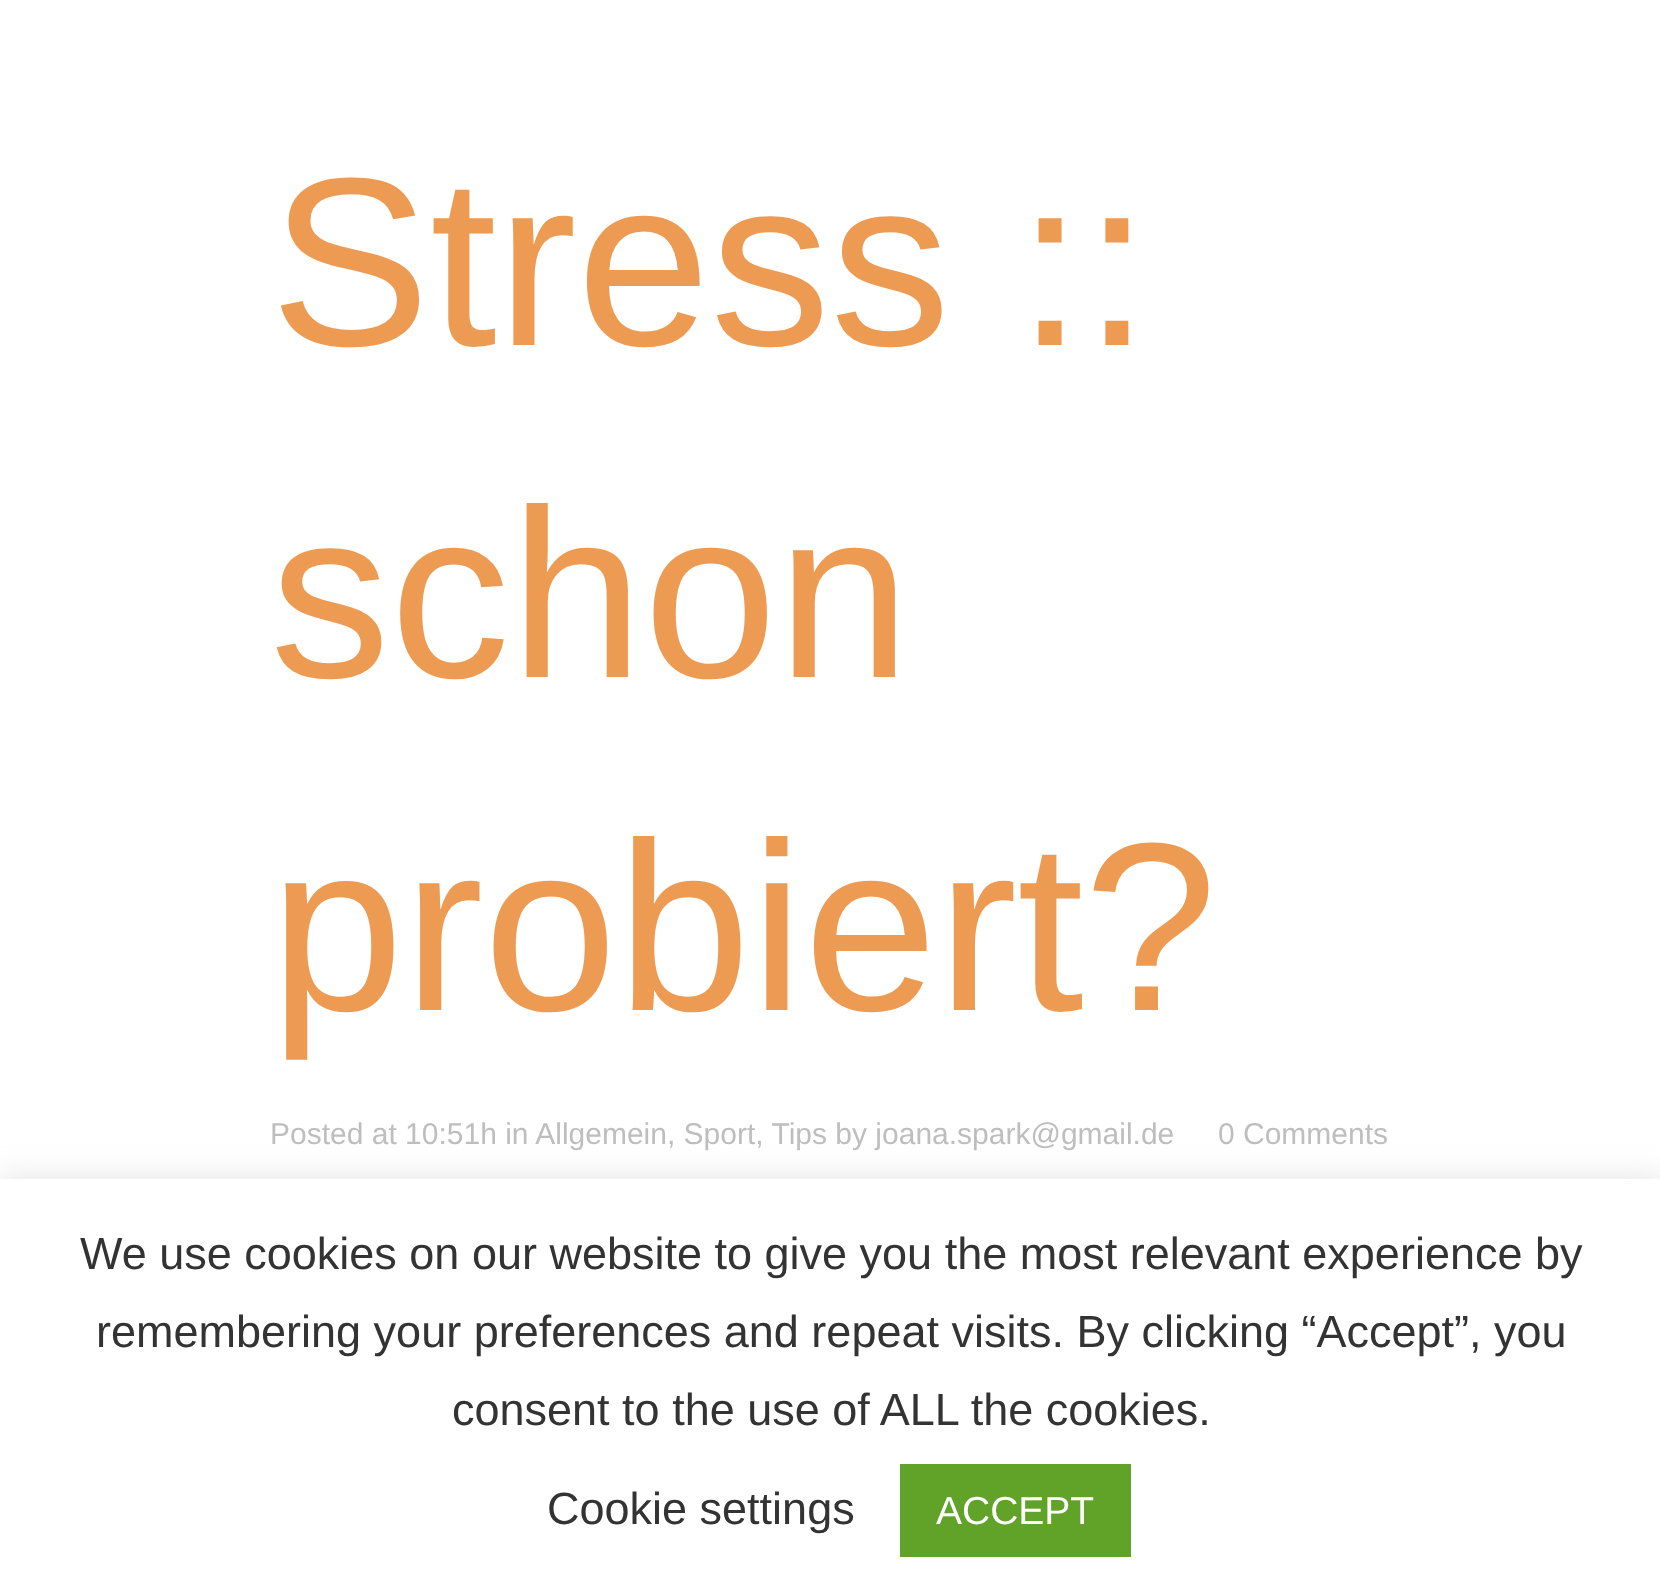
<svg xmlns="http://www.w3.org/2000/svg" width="1660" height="1591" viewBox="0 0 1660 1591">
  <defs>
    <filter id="blur1" x="-50%" y="-200%" width="200%" height="500%"><feGaussianBlur stdDeviation="15"/></filter>
  </defs>
  <rect width="100%" height="100%" fill="#ffffff"/>
  <text x="270" y="345" font-family="Liberation Sans" font-size="240" fill="#ed9b52">Stress ::</text>
  <text x="270" y="677" font-family="Liberation Sans" font-size="240" fill="#ed9b52">schon</text>
  <text x="270" y="1010" font-family="Liberation Sans" font-size="240" fill="#ed9b52">probiert?</text>
  <text x="270" y="1144" font-family="Liberation Sans" font-size="30" fill="#bebebe">Posted at 10:51h in Allgemein, Sport, Tips by joana.spark@gmail.de</text>
  <text x="1218" y="1144" font-family="Liberation Sans" font-size="30" fill="#bebebe">0 Comments</text>
  <rect x="0" y="1176" width="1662" height="414" fill="#acabab" fill-opacity="0.3" filter="url(#blur1)"/>
  <rect x="0" y="1179" width="1660" height="412" fill="#ffffff"/>
  <text x="80" y="1269" font-family="Liberation Sans" font-size="45" fill="#333333">We use cookies on our website to give you the most relevant experience by</text>
  <text x="96" y="1347" font-family="Liberation Sans" font-size="45" fill="#333333">remembering your preferences and repeat visits. By clicking “Accept”, you</text>
  <text x="452" y="1425" font-family="Liberation Sans" font-size="45" fill="#333333">consent to the use of ALL the cookies.</text>
  <text x="547" y="1524" font-family="Liberation Sans" font-size="45" fill="#333333">Cookie settings</text>
  <rect x="900" y="1464" width="231" height="93" fill="#61a229"/>
  <text x="936" y="1524" font-family="Liberation Sans" font-size="39" fill="#ffffff">ACCEPT</text>
</svg>
